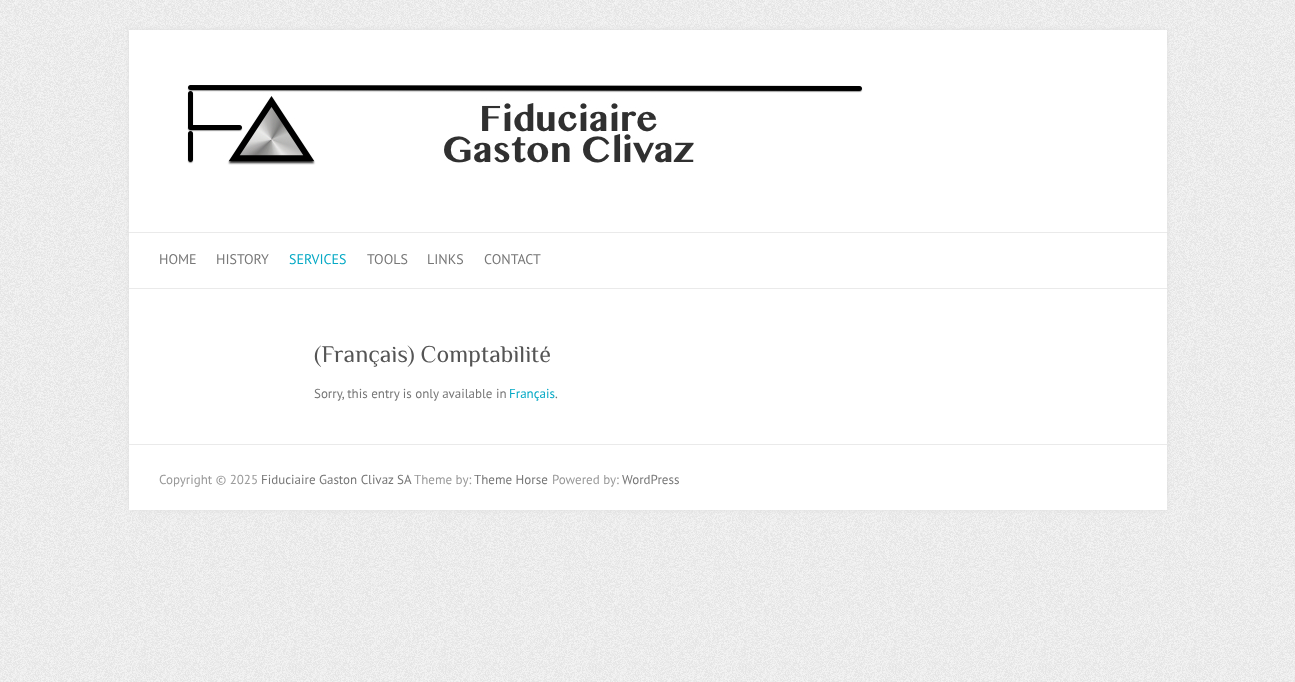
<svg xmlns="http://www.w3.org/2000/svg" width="1295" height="682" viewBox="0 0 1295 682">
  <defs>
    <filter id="blur1" x="-50%" y="-200%" width="200%" height="500%"><feGaussianBlur stdDeviation="2.5"/></filter>
  </defs>
  <rect width="100%" height="100%" fill="#ffffff"/>
  <image x="0" y="0" width="1295" height="682" href="img1.png"/>
  <rect x="129" y="30" width="1038" height="480" fill="#dddddd" filter="url(#blur1)"/>
  <rect x="129" y="30" width="1038" height="480" fill="#ffffff"/>
  <image x="187" y="85" width="676" height="80" href="img2.png"/>
  <rect x="129" y="232" width="1038" height="1" fill="#eaeaea"/>
  <rect x="129" y="288" width="1038" height="1" fill="#eaeaea"/>
  <text x="159" y="264" font-family="PT Sans" font-size="14" fill="#777777">HOME</text>
  <text x="216" y="264" font-family="PT Sans" font-size="14" fill="#777777">HISTORY</text>
  <text x="289" y="264" font-family="PT Sans" font-size="14" fill="#05a9c5">SERVICES</text>
  <text x="367" y="264" font-family="PT Sans" font-size="14" fill="#777777">TOOLS</text>
  <text x="427" y="264" font-family="PT Sans" font-size="14" fill="#777777">LINKS</text>
  <text x="484" y="264" font-family="PT Sans" font-size="14" fill="#777777">CONTACT</text>
  <text x="314" y="362" font-family="Philosopher" font-size="24" fill="#555555">(Français) Comptabilité</text>
  <text x="314" y="398" font-family="PT Sans" font-size="13" fill="#777777">Sorry, this entry is only available in</text>
  <text x="509" y="398" font-family="PT Sans" font-size="13" fill="#05a9c5">Français</text>
  <text x="555" y="398" font-family="PT Sans" font-size="13" fill="#777777">.</text>
  <rect x="129" y="444" width="1038" height="1" fill="#eaeaea"/>
  <text x="159" y="484" font-family="PT Sans" font-size="13" fill="#999999">Copyright © 2025</text>
  <text x="261" y="484" font-family="PT Sans" font-size="13" fill="#777777">Fiduciaire Gaston Clivaz SA</text>
  <text x="414" y="484" font-family="PT Sans" font-size="13" fill="#999999">Theme by:</text>
  <text x="474" y="484" font-family="PT Sans" font-size="13" fill="#777777">Theme Horse</text>
  <text x="552" y="484" font-family="PT Sans" font-size="13" fill="#999999">Powered by:</text>
  <text x="622" y="484" font-family="PT Sans" font-size="13" fill="#777777">WordPress</text>
</svg>
